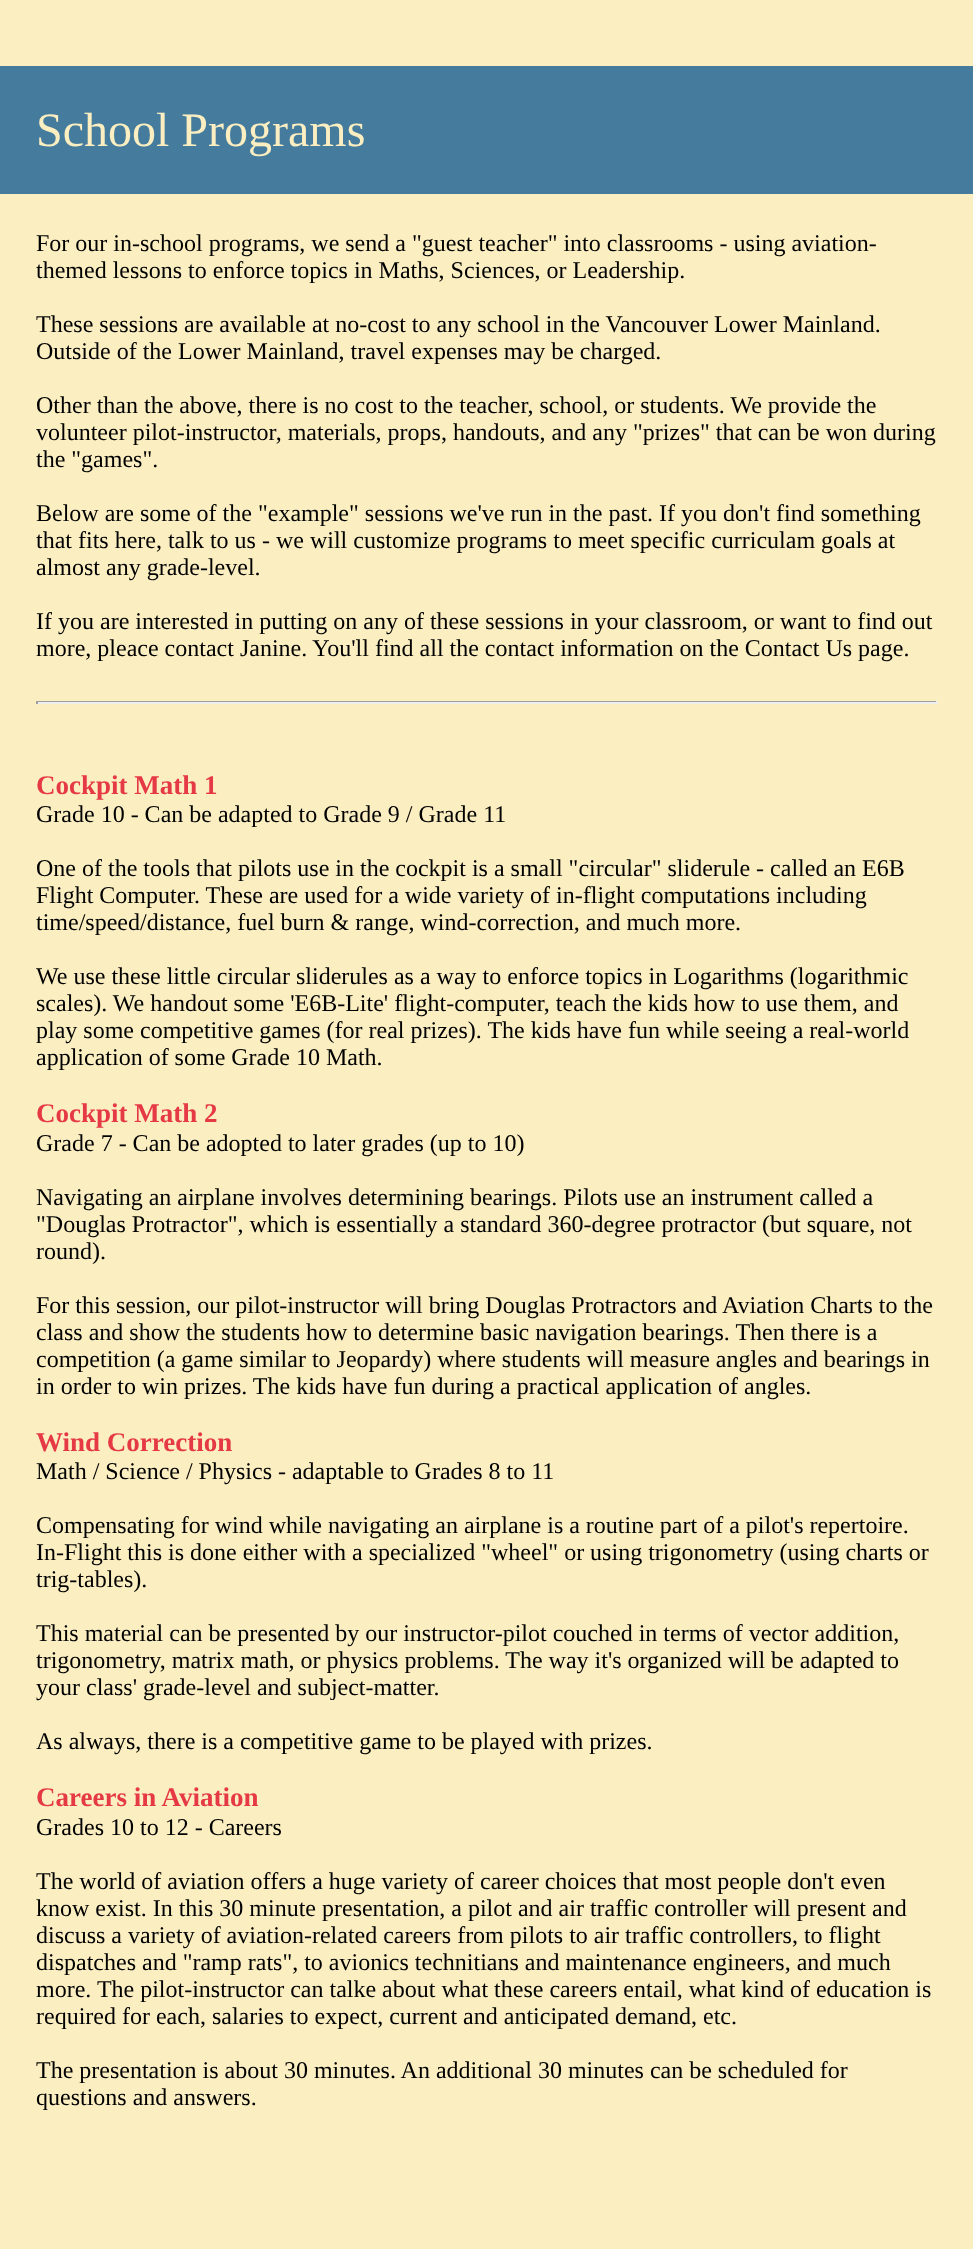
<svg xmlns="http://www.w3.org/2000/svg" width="973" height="2249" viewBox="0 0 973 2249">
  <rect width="100%" height="100%" fill="#fbeec1"/>
  <rect x="0" y="66" width="973" height="128" fill="#457b9d"/>
  <text x="36" y="146" font-family="Liberation Serif" font-size="48" fill="#fbeec1">School Programs</text>
  <text x="36" y="251" font-family="Liberation Serif" font-size="24" fill="#000000">For our in-school programs, we send a "guest teacher" into classrooms - using aviation-</text>
  <text x="36" y="278" font-family="Liberation Serif" font-size="24" fill="#000000">themed lessons to enforce topics in Maths, Sciences, or Leadership.</text>
  <text x="36" y="332" font-family="Liberation Serif" font-size="24" fill="#000000">These sessions are available at no-cost to any school in the Vancouver Lower Mainland.</text>
  <text x="36" y="359" font-family="Liberation Serif" font-size="24" fill="#000000">Outside of the Lower Mainland, travel expenses may be charged.</text>
  <text x="36" y="413" font-family="Liberation Serif" font-size="24" fill="#000000">Other than the above, there is no cost to the teacher, school, or students. We provide the</text>
  <text x="36" y="440" font-family="Liberation Serif" font-size="24" fill="#000000">volunteer pilot-instructor, materials, props, handouts, and any "prizes" that can be won during</text>
  <text x="36" y="467" font-family="Liberation Serif" font-size="24" fill="#000000">the "games".</text>
  <text x="36" y="521" font-family="Liberation Serif" font-size="24" fill="#000000">Below are some of the "example" sessions we've run in the past. If you don't find something</text>
  <text x="36" y="548" font-family="Liberation Serif" font-size="24" fill="#000000">that fits here, talk to us - we will customize programs to meet specific curriculam goals at</text>
  <text x="36" y="575" font-family="Liberation Serif" font-size="24" fill="#000000">almost any grade-level.</text>
  <text x="36" y="629" font-family="Liberation Serif" font-size="24" fill="#000000">If you are interested in putting on any of these sessions in your classroom, or want to find out</text>
  <text x="36" y="656" font-family="Liberation Serif" font-size="24" fill="#000000">more, pleace contact Janine. You'll find all the contact information on the Contact Us page.</text>
  <rect x="36" y="701" width="902" height="1" fill="#9f9f9f"/>
  <rect x="936" y="701" width="2" height="3" fill="#eeeeee"/>
  <rect x="36" y="702" width="902" height="2" fill="#eeeeee"/>
  <rect x="36" y="701" width="2" height="3" fill="#9f9f9f"/>
  <text x="36" y="794" font-family="Liberation Serif" font-size="27" font-weight="bold" fill="#e63946">Cockpit Math 1</text>
  <text x="36" y="822" font-family="Liberation Serif" font-size="24" fill="#000000">Grade 10 - Can be adapted to Grade 9 / Grade 11</text>
  <text x="36" y="876" font-family="Liberation Serif" font-size="24" fill="#000000">One of the tools that pilots use in the cockpit is a small "circular" sliderule - called an E6B</text>
  <text x="36" y="903" font-family="Liberation Serif" font-size="24" fill="#000000">Flight Computer. These are used for a wide variety of in-flight computations including</text>
  <text x="36" y="930" font-family="Liberation Serif" font-size="24" fill="#000000">time/speed/distance, fuel burn &amp; range, wind-correction, and much more.</text>
  <text x="36" y="984" font-family="Liberation Serif" font-size="24" fill="#000000">We use these little circular sliderules as a way to enforce topics in Logarithms (logarithmic</text>
  <text x="36" y="1011" font-family="Liberation Serif" font-size="24" fill="#000000">scales). We handout some 'E6B-Lite' flight-computer, teach the kids how to use them, and</text>
  <text x="36" y="1038" font-family="Liberation Serif" font-size="24" fill="#000000">play some competitive games (for real prizes). The kids have fun while seeing a real-world</text>
  <text x="36" y="1065" font-family="Liberation Serif" font-size="24" fill="#000000">application of some Grade 10 Math.</text>
  <text x="36" y="1122" font-family="Liberation Serif" font-size="27" font-weight="bold" fill="#e63946">Cockpit Math 2</text>
  <text x="36" y="1151" font-family="Liberation Serif" font-size="24" fill="#000000">Grade 7 - Can be adopted to later grades (up to 10)</text>
  <text x="36" y="1205" font-family="Liberation Serif" font-size="24" fill="#000000">Navigating an airplane involves determining bearings. Pilots use an instrument called a</text>
  <text x="36" y="1232" font-family="Liberation Serif" font-size="24" fill="#000000">"Douglas Protractor", which is essentially a standard 360-degree protractor (but square, not</text>
  <text x="36" y="1259" font-family="Liberation Serif" font-size="24" fill="#000000">round).</text>
  <text x="36" y="1313" font-family="Liberation Serif" font-size="24" fill="#000000">For this session, our pilot-instructor will bring Douglas Protractors and Aviation Charts to the</text>
  <text x="36" y="1340" font-family="Liberation Serif" font-size="24" fill="#000000">class and show the students how to determine basic navigation bearings. Then there is a</text>
  <text x="36" y="1367" font-family="Liberation Serif" font-size="24" fill="#000000">competition (a game similar to Jeopardy) where students will measure angles and bearings in</text>
  <text x="36" y="1394" font-family="Liberation Serif" font-size="24" fill="#000000">in order to win prizes. The kids have fun during a practical application of angles.</text>
  <text x="36" y="1451" font-family="Liberation Serif" font-size="27" font-weight="bold" fill="#e63946">Wind Correction</text>
  <text x="36" y="1479" font-family="Liberation Serif" font-size="24" fill="#000000">Math / Science / Physics - adaptable to Grades 8 to 11</text>
  <text x="36" y="1533" font-family="Liberation Serif" font-size="24" fill="#000000">Compensating for wind while navigating an airplane is a routine part of a pilot's repertoire.</text>
  <text x="36" y="1560" font-family="Liberation Serif" font-size="24" fill="#000000">In-Flight this is done either with a specialized "wheel" or using trigonometry (using charts or</text>
  <text x="36" y="1587" font-family="Liberation Serif" font-size="24" fill="#000000">trig-tables).</text>
  <text x="36" y="1641" font-family="Liberation Serif" font-size="24" fill="#000000">This material can be presented by our instructor-pilot couched in terms of vector addition,</text>
  <text x="36" y="1668" font-family="Liberation Serif" font-size="24" fill="#000000">trigonometry, matrix math, or physics problems. The way it's organized will be adapted to</text>
  <text x="36" y="1695" font-family="Liberation Serif" font-size="24" fill="#000000">your class' grade-level and subject-matter.</text>
  <text x="36" y="1749" font-family="Liberation Serif" font-size="24" fill="#000000">As always, there is a competitive game to be played with prizes.</text>
  <text x="36" y="1806" font-family="Liberation Serif" font-size="27" font-weight="bold" fill="#e63946">Careers in Aviation</text>
  <text x="36" y="1835" font-family="Liberation Serif" font-size="24" fill="#000000">Grades 10 to 12 - Careers</text>
  <text x="36" y="1889" font-family="Liberation Serif" font-size="24" fill="#000000">The world of aviation offers a huge variety of career choices that most people don't even</text>
  <text x="36" y="1916" font-family="Liberation Serif" font-size="24" fill="#000000">know exist. In this 30 minute presentation, a pilot and air traffic controller will present and</text>
  <text x="36" y="1943" font-family="Liberation Serif" font-size="24" fill="#000000">discuss a variety of aviation-related careers from pilots to air traffic controllers, to flight</text>
  <text x="36" y="1970" font-family="Liberation Serif" font-size="24" fill="#000000">dispatches and "ramp rats", to avionics technitians and maintenance engineers, and much</text>
  <text x="36" y="1997" font-family="Liberation Serif" font-size="24" fill="#000000">more. The pilot-instructor can talke about what these careers entail, what kind of education is</text>
  <text x="36" y="2024" font-family="Liberation Serif" font-size="24" fill="#000000">required for each, salaries to expect, current and anticipated demand, etc.</text>
  <text x="36" y="2078" font-family="Liberation Serif" font-size="24" fill="#000000">The presentation is about 30 minutes. An additional 30 minutes can be scheduled for</text>
  <text x="36" y="2105" font-family="Liberation Serif" font-size="24" fill="#000000">questions and answers.</text>
</svg>
